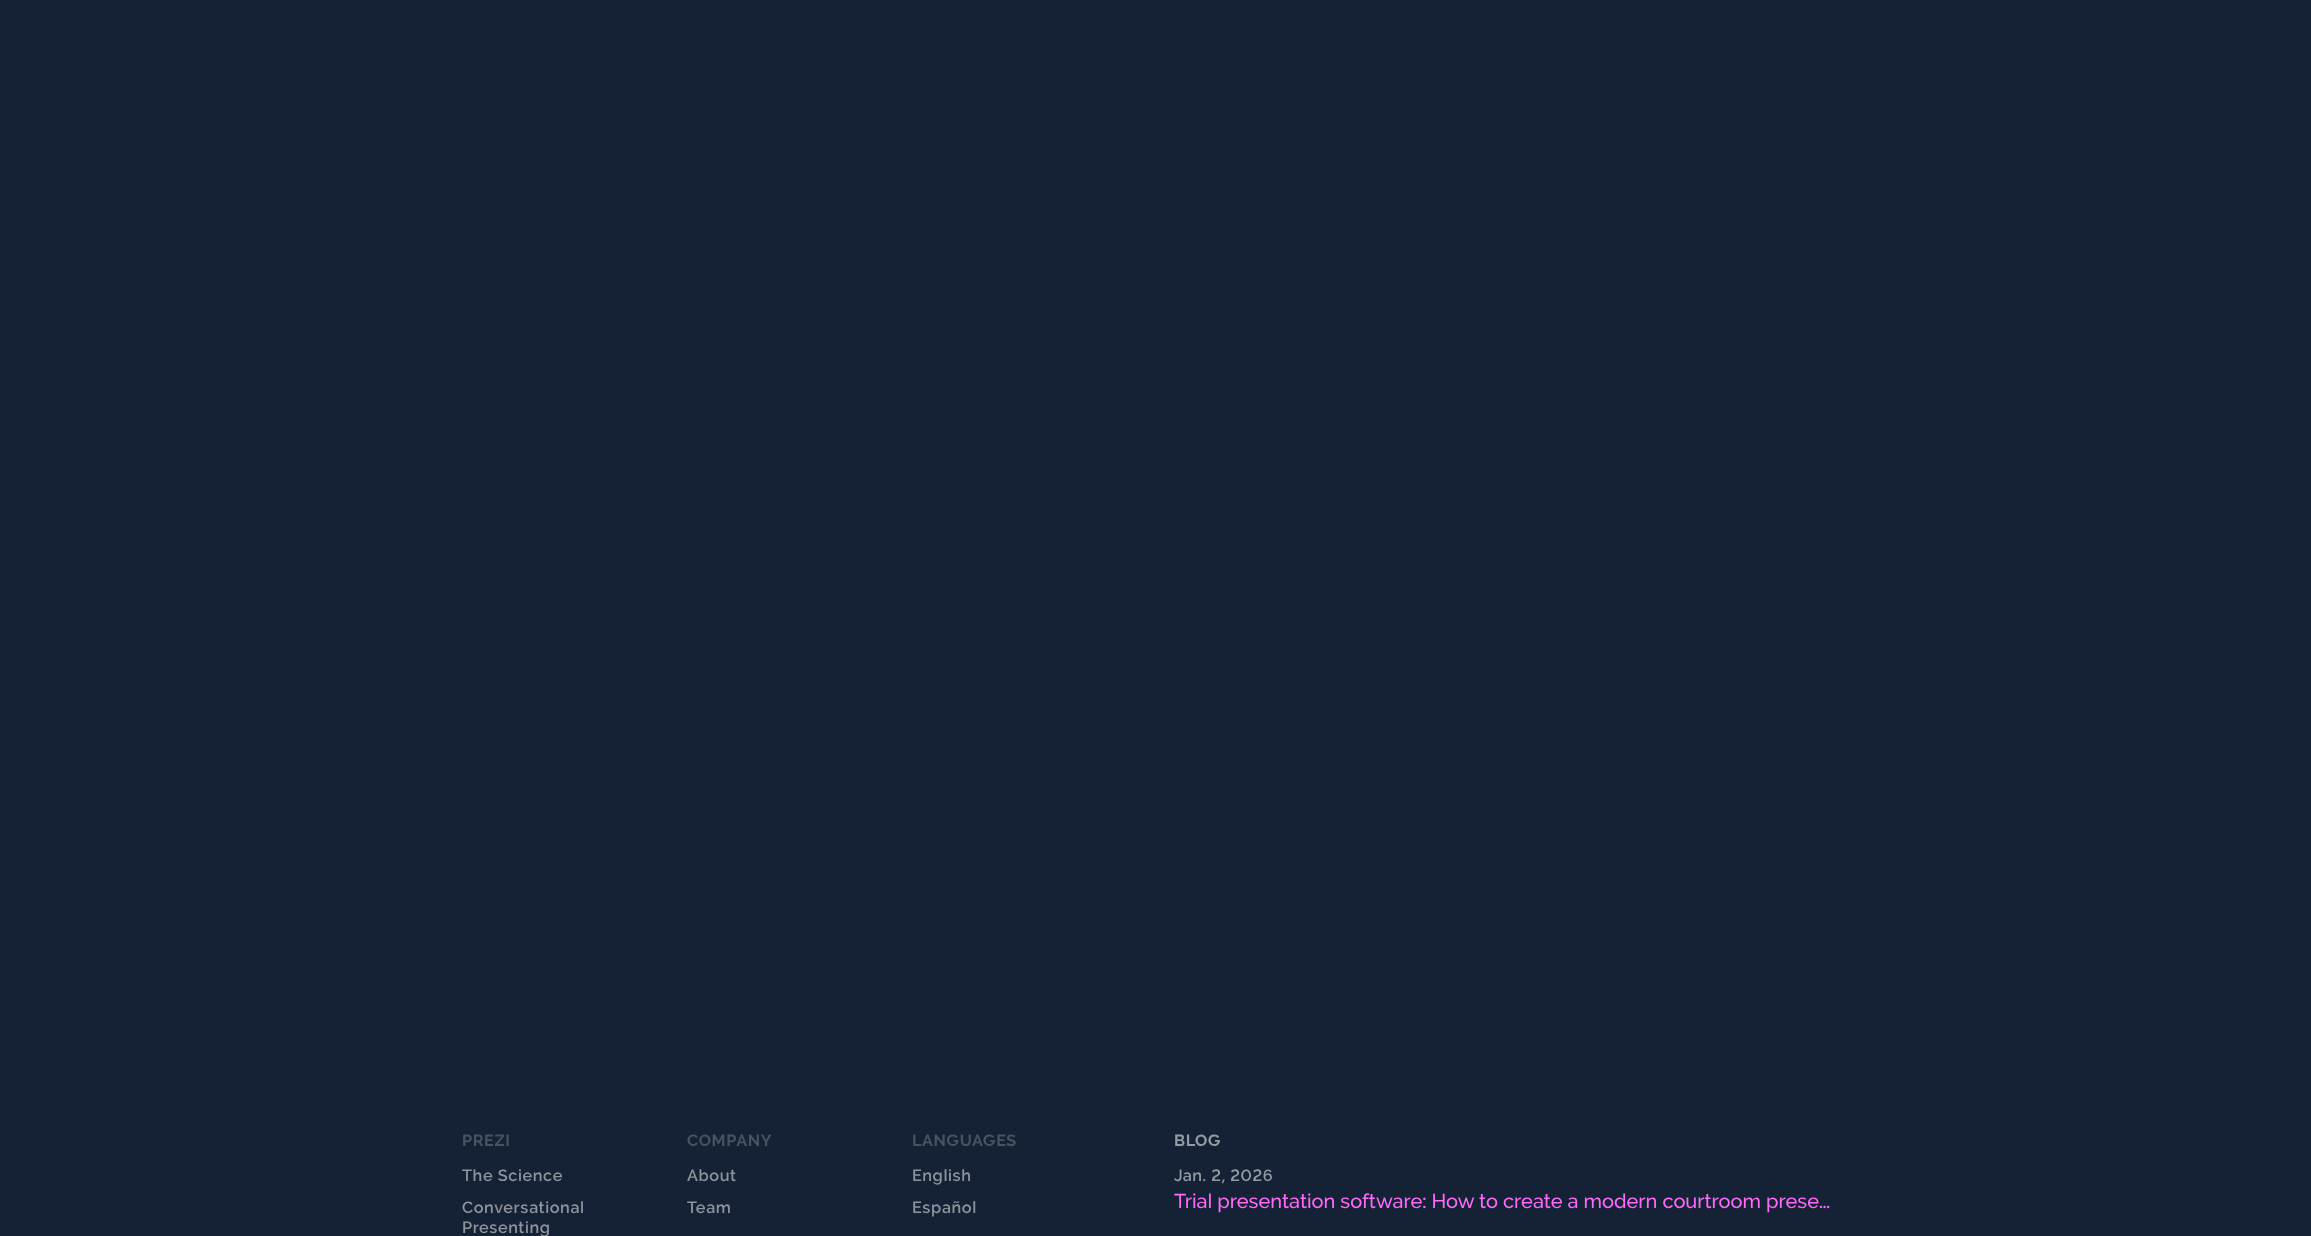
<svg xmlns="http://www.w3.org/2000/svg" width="2311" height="1236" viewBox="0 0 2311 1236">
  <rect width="100%" height="100%" fill="#152235"/>
  <text x="462" y="1146" font-family="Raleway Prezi" font-size="16.25" font-weight="bold" letter-spacing="0.6" fill="#475262">PREZI</text>
  <text x="462" y="1181" font-family="Raleway Prezi" font-size="16.25" font-weight="600" letter-spacing="0.6" fill="#8e939c">The Science</text>
  <text x="462" y="1213" font-family="Raleway Prezi" font-size="16.25" font-weight="600" letter-spacing="0.6" fill="#8e939c">Conversational</text>
  <text x="462" y="1233" font-family="Raleway Prezi" font-size="16.25" font-weight="600" letter-spacing="0.6" fill="#8e939c">Presenting</text>
  <text x="687" y="1146" font-family="Raleway Prezi" font-size="16.25" font-weight="bold" letter-spacing="0.6" fill="#475262">COMPANY</text>
  <text x="687" y="1181" font-family="Raleway Prezi" font-size="16.25" font-weight="600" letter-spacing="0.6" fill="#8e939c">About</text>
  <text x="687" y="1213" font-family="Raleway Prezi" font-size="16.25" font-weight="600" letter-spacing="0.6" fill="#8e939c">Team</text>
  <text x="912" y="1146" font-family="Raleway Prezi" font-size="16.25" font-weight="bold" letter-spacing="0.6" fill="#475262">LANGUAGES</text>
  <text x="912" y="1181" font-family="Raleway Prezi" font-size="16.25" font-weight="600" letter-spacing="0.6" fill="#8e939c">English</text>
  <text x="912" y="1213" font-family="Raleway Prezi" font-size="16.25" font-weight="600" letter-spacing="0.6" fill="#8e939c">Español</text>
  <text x="1174" y="1146" font-family="Raleway Prezi" font-size="16.25" font-weight="bold" letter-spacing="0.6" fill="#929aa3">BLOG</text>
  <text x="1174" y="1181" font-family="Raleway Prezi" font-size="16.25" font-weight="600" letter-spacing="0.6" fill="#929aa3">Jan. 2, 2026</text>
  <text x="1174" y="1208" font-family="Raleway Prezi" font-size="20" font-weight="500" fill="#fd6afa">Trial presentation software: How to create a modern courtroom prese…</text>
</svg>
